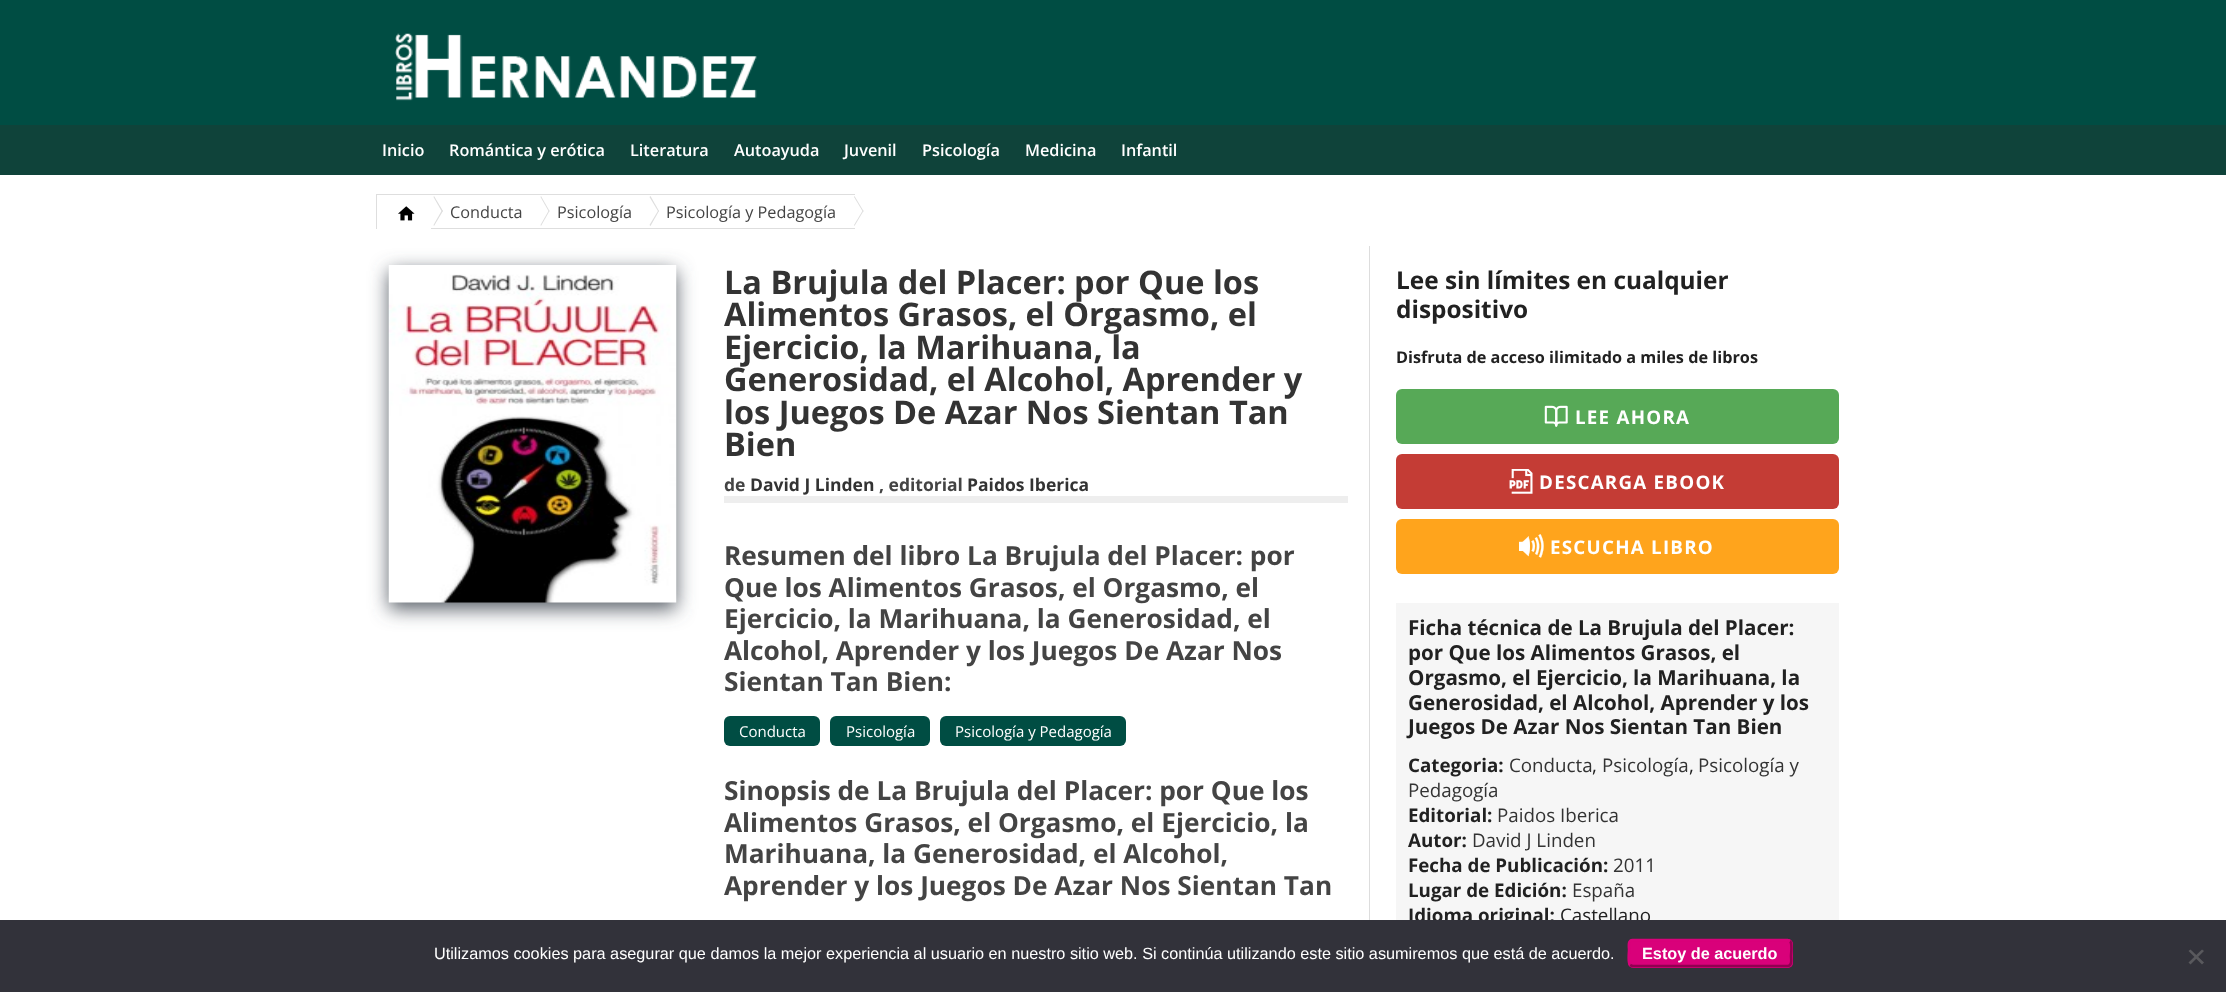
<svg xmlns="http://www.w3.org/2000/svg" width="2226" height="992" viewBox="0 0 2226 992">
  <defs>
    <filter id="blur1" x="-50%" y="-200%" width="200%" height="500%"><feGaussianBlur stdDeviation="9.5"/></filter>
  </defs>
  <rect width="100%" height="100%" fill="#ffffff"/>
  <rect x="0" y="0" width="2226" height="125" fill="#004d43"/>
  <image x="395" y="33" width="362" height="68" href="img1.png"/>
  <rect x="0" y="125" width="2226" height="50" fill="#0f433a"/>
  <text x="382" y="156" font-family="Open Sans" font-size="16.25" font-weight="600" fill="#ffffff">Inicio</text>
  <text x="449" y="156" font-family="Open Sans" font-size="16.25" font-weight="600" fill="#ffffff">Romántica y erótica</text>
  <text x="630" y="156" font-family="Open Sans" font-size="16.25" font-weight="600" fill="#ffffff">Literatura</text>
  <text x="734" y="156" font-family="Open Sans" font-size="16.25" font-weight="600" fill="#ffffff">Autoayuda</text>
  <text x="844" y="156" font-family="Open Sans" font-size="16.25" font-weight="600" fill="#ffffff">Juvenil</text>
  <text x="922" y="156" font-family="Open Sans" font-size="16.25" font-weight="600" fill="#ffffff">Psicología</text>
  <text x="1025" y="156" font-family="Open Sans" font-size="16.25" font-weight="600" fill="#ffffff">Medicina</text>
  <text x="1121" y="156" font-family="Open Sans" font-size="16.25" font-weight="600" fill="#ffffff">Infantil</text>
  <rect x="376" y="194" width="479" height="1" fill="#dedede"/>
  <rect x="376" y="194" width="1" height="35" fill="#dedede"/>
  <image x="398" y="206" width="17" height="15" href="img2.png"/>
  <path d="M434 196L443 211L442 212L433.5 197Z" fill="#dedede"/>
  <path d="M442 210L443 211L434 226L433.5 225Z" fill="#dedede"/>
  <rect x="431" y="228" width="424" height="1" fill="#dedede"/>
  <text x="450" y="218" font-family="Open Sans" font-size="16.25" fill="#444444">Conducta</text>
  <path d="M541 196L549.5 211L549 212L540.5 197Z" fill="#dedede"/>
  <path d="M549 210L549.5 211L541 226L540.5 225Z" fill="#dedede"/>
  <text x="557" y="218" font-family="Open Sans" font-size="16.25" fill="#444444">Psicología</text>
  <path d="M650.5 196L659 211L658.5 212L649.5 197Z" fill="#dedede"/>
  <path d="M658.5 210L659 211L650.5 226L649.5 225Z" fill="#dedede"/>
  <text x="666" y="218" font-family="Open Sans" font-size="16.25" fill="#444444">Psicología y Pedagogía</text>
  <path d="M854.5 196L863.5 211L863 212L854 197Z" fill="#dedede"/>
  <path d="M863 210L863.5 211L854.5 226L854 225Z" fill="#dedede"/>
  <rect x="1369" y="246" width="1" height="674" fill="#dddddd"/>
  <rect x="389" y="271" width="287" height="338" fill="#595e68" filter="url(#blur1)"/>
  <image x="388" y="265" width="289" height="338" href="img3.png"/>
  <rect x="724" y="496" width="624" height="7" fill="#eeeeee"/>
  <text x="724" y="294" font-family="Open Sans" font-size="32.5" font-weight="bold" fill="#333333">La Brujula del Placer: por Que los</text>
  <text x="724" y="326" font-family="Open Sans" font-size="32.5" font-weight="bold" fill="#333333">Alimentos Grasos, el Orgasmo, el</text>
  <text x="724" y="359" font-family="Open Sans" font-size="32.5" font-weight="bold" fill="#333333">Ejercicio, la Marihuana, la</text>
  <text x="724" y="391" font-family="Open Sans" font-size="32.5" font-weight="bold" fill="#333333">Generosidad, el Alcohol, Aprender y</text>
  <text x="724" y="424" font-family="Open Sans" font-size="32.5" font-weight="bold" fill="#333333">los Juegos De Azar Nos Sientan Tan</text>
  <text x="724" y="456" font-family="Open Sans" font-size="32.5" font-weight="bold" fill="#333333">Bien</text>
  <text x="724" y="491" font-family="Open Sans" font-size="17.5" font-weight="bold" fill="#444444">de</text>
  <text x="750" y="491" font-family="Open Sans" font-size="17.5" font-weight="bold" fill="#333333">David J Linden</text>
  <text x="879" y="491" font-family="Open Sans" font-size="17.5" font-weight="bold" fill="#444444">, editorial</text>
  <text x="967" y="491" font-family="Open Sans" font-size="17.5" font-weight="bold" fill="#333333">Paidos Iberica</text>
  <text x="724" y="565" font-family="Open Sans" font-size="26.25" font-weight="bold" fill="#444444">Resumen del libro La Brujula del Placer: por</text>
  <text x="724" y="597" font-family="Open Sans" font-size="26.25" font-weight="bold" fill="#444444">Que los Alimentos Grasos, el Orgasmo, el</text>
  <text x="724" y="628" font-family="Open Sans" font-size="26.25" font-weight="bold" fill="#444444">Ejercicio, la Marihuana, la Generosidad, el</text>
  <text x="724" y="660" font-family="Open Sans" font-size="26.25" font-weight="bold" fill="#444444">Alcohol, Aprender y los Juegos De Azar Nos</text>
  <text x="724" y="691" font-family="Open Sans" font-size="26.25" font-weight="bold" fill="#444444">Sientan Tan Bien:</text>
  <rect x="724" y="716" width="96" height="30" rx="6" fill="#004d43"/>
  <text x="739" y="737" font-family="Open Sans" font-size="15" fill="#ffffff">Conducta</text>
  <rect x="830" y="716" width="100" height="30" rx="6" fill="#004d43"/>
  <text x="846" y="737" font-family="Open Sans" font-size="15" fill="#ffffff">Psicología</text>
  <rect x="940" y="716" width="186" height="30" rx="6" fill="#004d43"/>
  <text x="955" y="737" font-family="Open Sans" font-size="15" fill="#ffffff">Psicología y Pedagogía</text>
  <text x="724" y="800" font-family="Open Sans" font-size="26.25" font-weight="bold" fill="#444444">Sinopsis de La Brujula del Placer: por Que los</text>
  <text x="724" y="832" font-family="Open Sans" font-size="26.25" font-weight="bold" fill="#444444">Alimentos Grasos, el Orgasmo, el Ejercicio, la</text>
  <text x="724" y="863" font-family="Open Sans" font-size="26.25" font-weight="bold" fill="#444444">Marihuana, la Generosidad, el Alcohol,</text>
  <text x="724" y="895" font-family="Open Sans" font-size="26.25" font-weight="bold" fill="#444444">Aprender y los Juegos De Azar Nos Sientan Tan</text>
  <text x="1396" y="289" font-family="Open Sans" font-size="24.4" font-weight="bold" fill="#212121">Lee sin límites en cualquier</text>
  <text x="1396" y="318" font-family="Open Sans" font-size="24.4" font-weight="bold" fill="#212121">dispositivo</text>
  <text x="1396" y="363" font-family="Open Sans" font-size="16.25" font-weight="bold" fill="#212121">Disfruta de acceso ilimitado a miles de libros</text>
  <rect x="1396" y="389" width="443" height="55" rx="6" fill="#57a957"/>
  <image x="1544" y="405" width="24" height="22" href="img4.png"/>
  <text x="1575" y="424" font-family="Open Sans" font-size="18.75" font-weight="bold" letter-spacing="1.25" fill="#ffffff">LEE AHORA</text>
  <rect x="1396" y="454" width="443" height="55" rx="6" fill="#c43c35"/>
  <image x="1509" y="469" width="24" height="25" href="img5.png"/>
  <text x="1539" y="489" font-family="Open Sans" font-size="18.75" font-weight="bold" letter-spacing="1.25" fill="#ffffff">DESCARGA EBOOK</text>
  <rect x="1396" y="519" width="443" height="55" rx="6" fill="#ffa41c"/>
  <image x="1519" y="534" width="25" height="24" href="img6.png"/>
  <text x="1550" y="554" font-family="Open Sans" font-size="18.75" font-weight="bold" letter-spacing="1.25" fill="#ffffff">ESCUCHA LIBRO</text>
  <rect x="1396" y="603" width="443" height="317" fill="#f6f6f6"/>
  <text x="1408" y="635" font-family="Open Sans" font-size="20.6" font-weight="bold" fill="#212121">Ficha técnica de La Brujula del Placer:</text>
  <text x="1408" y="660" font-family="Open Sans" font-size="20.6" font-weight="bold" fill="#212121">por Que los Alimentos Grasos, el</text>
  <text x="1408" y="685" font-family="Open Sans" font-size="20.6" font-weight="bold" fill="#212121">Orgasmo, el Ejercicio, la Marihuana, la</text>
  <text x="1408" y="710" font-family="Open Sans" font-size="20.6" font-weight="bold" fill="#212121">Generosidad, el Alcohol, Aprender y los</text>
  <text x="1408" y="734" font-family="Open Sans" font-size="20.6" font-weight="bold" fill="#212121">Juegos De Azar Nos Sientan Tan Bien</text>
  <text x="1408" y="772" font-family="Open Sans" font-size="18.75" font-weight="bold" fill="#212121">Categoria:</text>
  <text x="1509" y="772" font-family="Open Sans" font-size="18.75" fill="#333333">Conducta</text>
  <text x="1592" y="772" font-family="Open Sans" font-size="18.75" fill="#212121">,</text>
  <text x="1602" y="772" font-family="Open Sans" font-size="18.75" fill="#333333">Psicología</text>
  <text x="1689" y="772" font-family="Open Sans" font-size="18.75" fill="#212121">,</text>
  <text x="1698" y="772" font-family="Open Sans" font-size="18.75" fill="#333333">Psicología y</text>
  <text x="1408" y="797" font-family="Open Sans" font-size="18.75" fill="#333333">Pedagogía</text>
  <text x="1408" y="822" font-family="Open Sans" font-size="18.75" font-weight="bold" fill="#212121">Editorial:</text>
  <text x="1497" y="822" font-family="Open Sans" font-size="18.75" fill="#333333">Paidos Iberica</text>
  <text x="1408" y="847" font-family="Open Sans" font-size="18.75" font-weight="bold" fill="#212121">Autor:</text>
  <text x="1472" y="847" font-family="Open Sans" font-size="18.75" fill="#333333">David J Linden</text>
  <text x="1408" y="872" font-family="Open Sans" font-size="18.75" font-weight="bold" fill="#212121">Fecha de Publicación:</text>
  <text x="1613" y="872" font-family="Open Sans" font-size="18.75" fill="#333333">2011</text>
  <text x="1408" y="897" font-family="Open Sans" font-size="18.75" font-weight="bold" fill="#212121">Lugar de Edición:</text>
  <text x="1572" y="897" font-family="Open Sans" font-size="18.75" fill="#333333">España</text>
  <text x="1408" y="922" font-family="Open Sans" font-size="18.75" font-weight="bold" fill="#212121">Idioma original:</text>
  <text x="1560" y="922" font-family="Open Sans" font-size="18.75" fill="#212121">Castellano</text>
  <rect x="0" y="920" width="2226" height="72" fill="#32323a"/>
  <text x="434" y="959" font-family="Liberation Sans" font-size="16.25" fill="#ffffff">Utilizamos cookies para asegurar que damos la mejor experiencia al usuario en nuestro sitio web. Si continúa utilizando este sitio asumiremos que está de acuerdo.</text>
  <rect x="1628" y="939" width="165" height="29" rx="5" fill="#d9017a"/>
  <path d="M1790 941C1792.5 943.5 1791 953 1791 956C1791 959 1792.5 966 1787.5 966H1632.5L1630 965" fill="none" stroke="#910151" stroke-width="2.5"/>
  <path d="M1630 965C1627.5 963 1629 953 1629 950C1629 947 1627.5 940 1632.5 940H1787.5L1790 941" fill="none" stroke="#d9017a" stroke-width="2.5"/>
  <text x="1642" y="959" font-family="Liberation Sans" font-size="16.25" font-weight="bold" fill="#ffffff">Estoy de acuerdo</text>
  <path d="M2202 949.5L2204 951L2190.5 964.5L2188.5 962.5Z" fill="#59595d"/>
  <path d="M2188.5 951L2190.5 949.5L2204 962.5L2202 964.5Z" fill="#59595d"/>
</svg>
